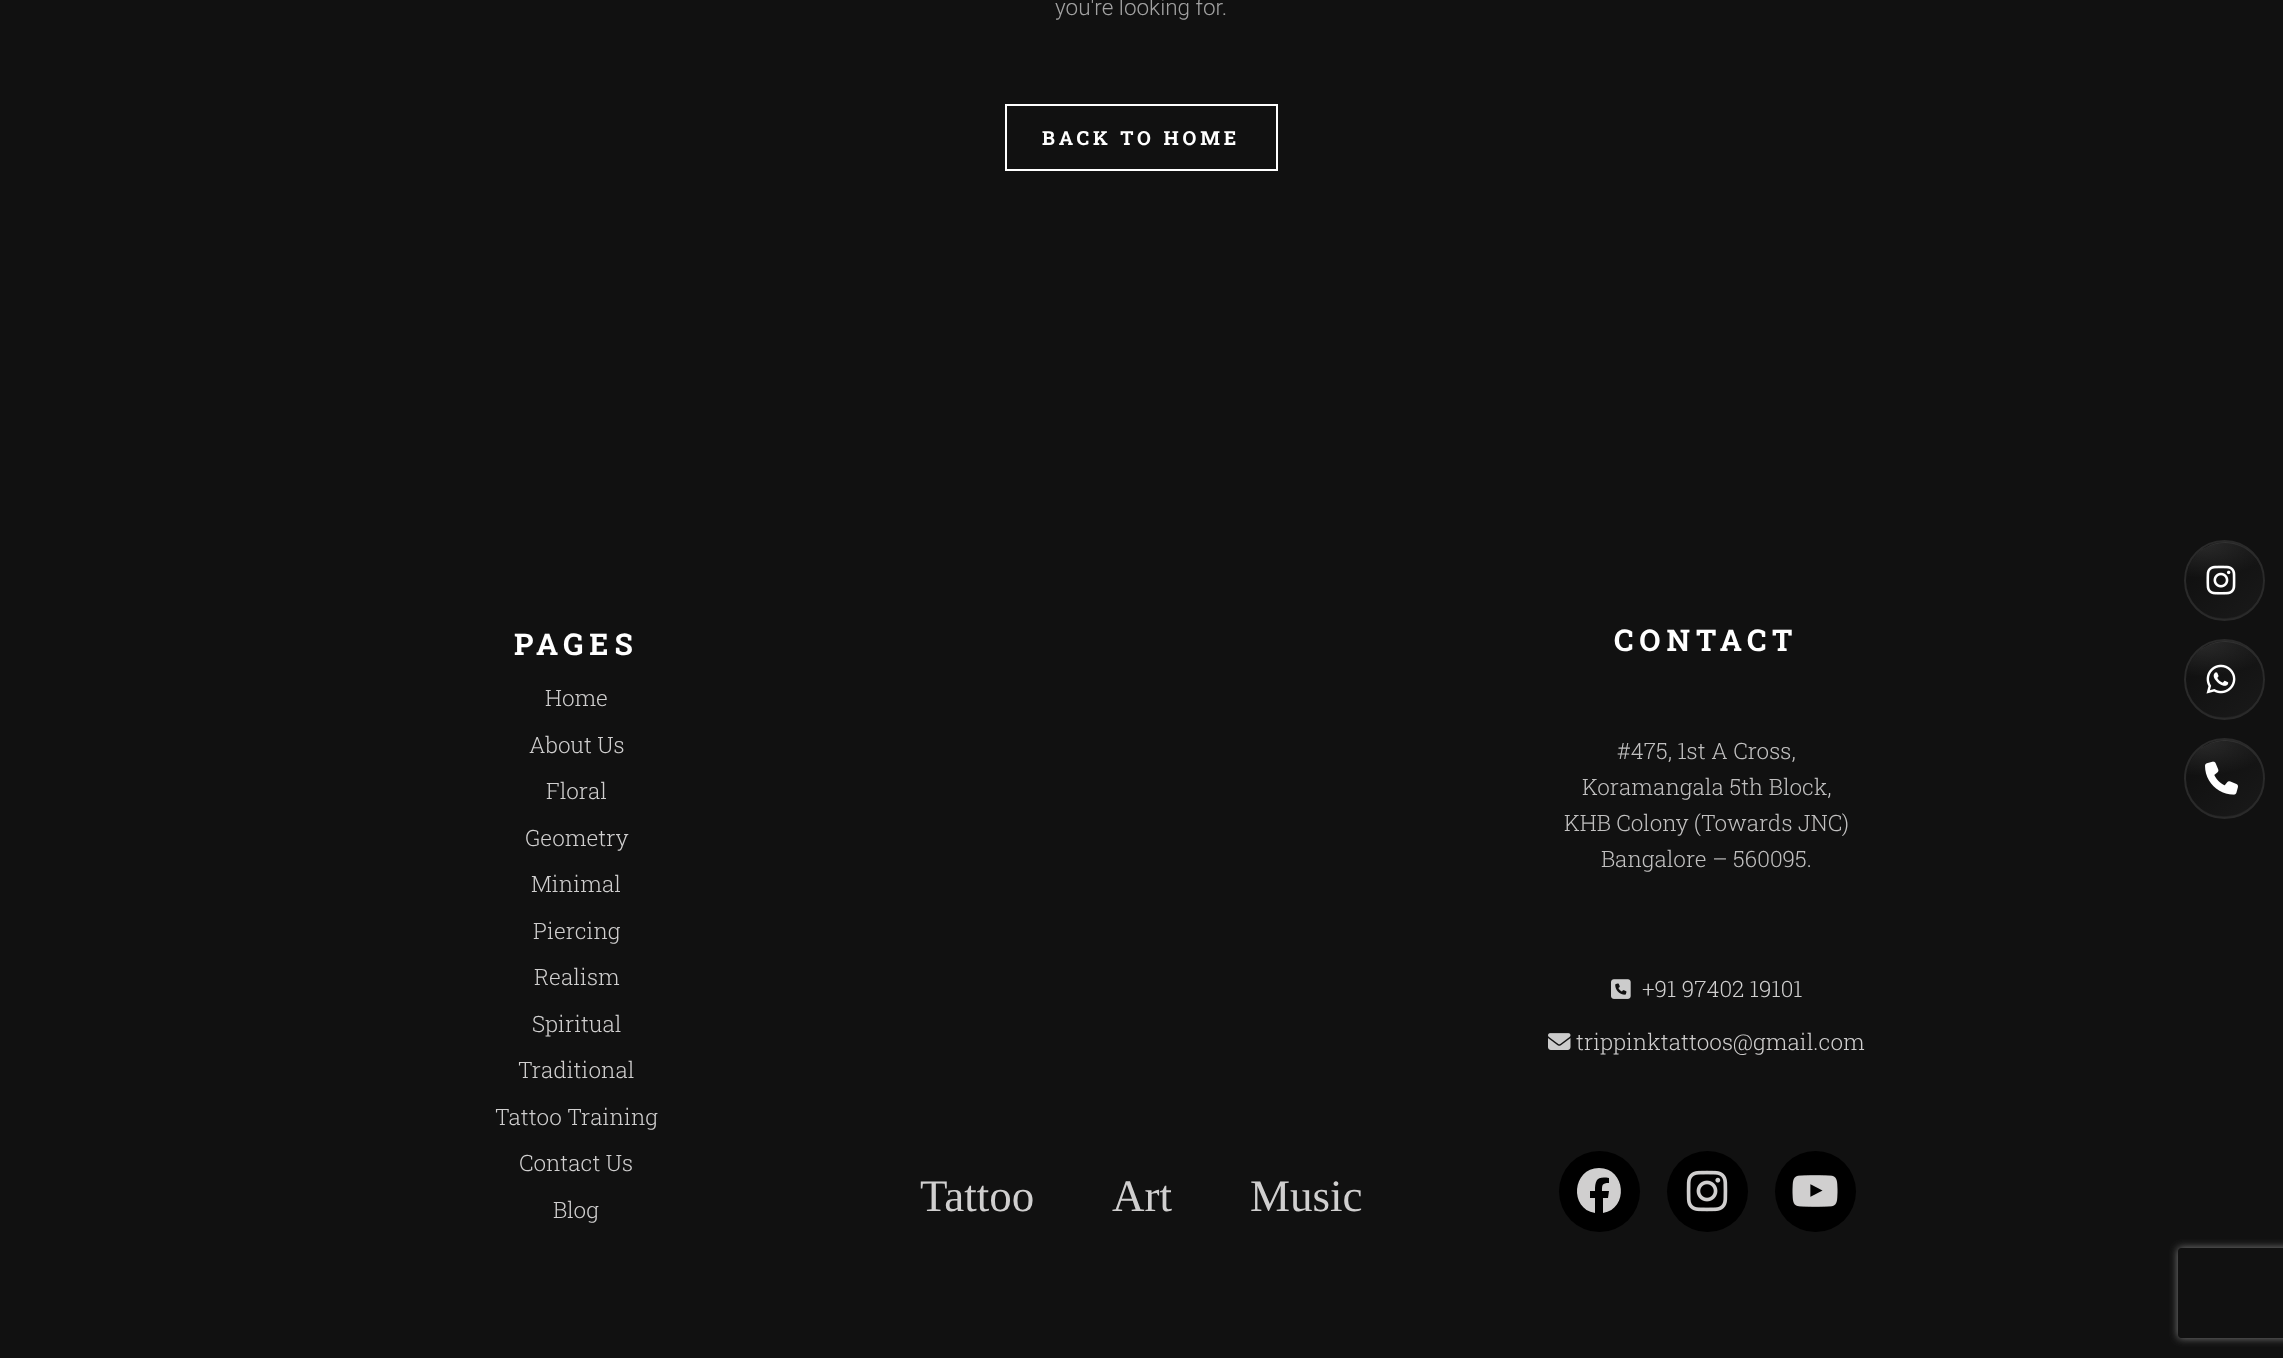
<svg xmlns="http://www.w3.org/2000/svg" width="2283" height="1358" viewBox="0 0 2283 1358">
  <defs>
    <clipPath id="clip1"><rect x="2184" y="540" width="81" height="81" rx="40.5"/></clipPath>
    <linearGradient id="g1" gradientUnits="userSpaceOnUse" x1="2193" y1="536" x2="2256" y2="625"><stop offset="0" stop-color="#0d0d0d"/><stop offset="1" stop-color="#1a1a1a"/></linearGradient>
    <radialGradient id="g2" gradientUnits="userSpaceOnUse" cx="0" cy="0" r="1" gradientTransform="matrix(180 0 0 90 2201 542)"><stop offset="0" stop-color="#ffffff" stop-opacity="0.12"/><stop offset="0.4" stop-color="#ffffff" stop-opacity="0"/></radialGradient>
    <clipPath id="clip2"><rect x="2184" y="639" width="81" height="81" rx="40.5"/></clipPath>
    <linearGradient id="g3" gradientUnits="userSpaceOnUse" x1="2193" y1="635" x2="2256" y2="724"><stop offset="0" stop-color="#0d0d0d"/><stop offset="1" stop-color="#1a1a1a"/></linearGradient>
    <radialGradient id="g4" gradientUnits="userSpaceOnUse" cx="0" cy="0" r="1" gradientTransform="matrix(180 0 0 90 2201 641)"><stop offset="0" stop-color="#ffffff" stop-opacity="0.12"/><stop offset="0.4" stop-color="#ffffff" stop-opacity="0"/></radialGradient>
    <clipPath id="clip3"><rect x="2184" y="738" width="81" height="81" rx="40.5"/></clipPath>
    <linearGradient id="g5" gradientUnits="userSpaceOnUse" x1="2193" y1="734" x2="2256" y2="823"><stop offset="0" stop-color="#0d0d0d"/><stop offset="1" stop-color="#1a1a1a"/></linearGradient>
    <radialGradient id="g6" gradientUnits="userSpaceOnUse" cx="0" cy="0" r="1" gradientTransform="matrix(180 0 0 90 2201 740)"><stop offset="0" stop-color="#ffffff" stop-opacity="0.12"/><stop offset="0.4" stop-color="#ffffff" stop-opacity="0"/></radialGradient>
    <clipPath id="clip4"><path d="M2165 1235H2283V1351H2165ZM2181 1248H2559C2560.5 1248 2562 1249.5 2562 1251V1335C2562 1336.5 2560.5 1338 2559 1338H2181C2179.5 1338 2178 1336.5 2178 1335V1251C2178 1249.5 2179.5 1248 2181 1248Z" clip-rule="evenodd"/></clipPath>
    <filter id="blur1" x="-50%" y="-200%" width="200%" height="500%"><feGaussianBlur stdDeviation="4"/></filter>
  </defs>
  <rect width="100%" height="100%" fill="#111111"/>
  <text x="1055" y="15" font-family="Roboto" font-size="22.5" font-weight="300" fill="#a2a2a2">you're looking for.</text>
  <rect x="1006" y="105" width="271" height="65" fill="none" stroke="#ffffff" stroke-width="2"/>
  <text x="1042" y="145" font-family="Roboto Slab" font-size="19.5" font-weight="bold" letter-spacing="3.9" fill="#ffffff">BACK TO HOME</text>
  <text x="514" y="655" font-family="Roboto Slab" font-size="30" font-weight="bold" letter-spacing="6" fill="#ffffff">PAGES</text>
  <text x="545" y="706" font-family="Roboto Slab" font-size="22.5" font-weight="300" fill="#d0cfcf">Home</text>
  <text x="529" y="753" font-family="Roboto Slab" font-size="22.5" font-weight="300" fill="#d0cfcf">About Us</text>
  <text x="546" y="799" font-family="Roboto Slab" font-size="22.5" font-weight="300" fill="#d0cfcf">Floral</text>
  <text x="525" y="846" font-family="Roboto Slab" font-size="22.5" font-weight="300" fill="#d0cfcf">Geometry</text>
  <text x="531" y="892" font-family="Roboto Slab" font-size="22.5" font-weight="300" fill="#d0cfcf">Minimal</text>
  <text x="533" y="939" font-family="Roboto Slab" font-size="22.5" font-weight="300" fill="#d0cfcf">Piercing</text>
  <text x="534" y="985" font-family="Roboto Slab" font-size="22.5" font-weight="300" fill="#d0cfcf">Realism</text>
  <text x="532" y="1032" font-family="Roboto Slab" font-size="22.5" font-weight="300" fill="#d0cfcf">Spiritual</text>
  <text x="518" y="1078" font-family="Roboto Slab" font-size="22.5" font-weight="300" fill="#d0cfcf">Traditional</text>
  <text x="495" y="1125" font-family="Roboto Slab" font-size="22.5" font-weight="300" fill="#d0cfcf">Tattoo Training</text>
  <text x="519" y="1171" font-family="Roboto Slab" font-size="22.5" font-weight="300" fill="#d0cfcf">Contact Us</text>
  <text x="553" y="1218" font-family="Roboto Slab" font-size="22.5" font-weight="300" fill="#d0cfcf">Blog</text>
  <text x="920" y="1211" font-family="Liberation Serif" font-size="45" fill="#d0cfcf">Tattoo</text>
  <text x="1112" y="1211" font-family="Liberation Serif" font-size="45" fill="#d0cfcf">Art</text>
  <text x="1250" y="1211" font-family="Liberation Serif" font-size="45" fill="#d0cfcf">Music</text>
  <text x="1614" y="651" font-family="Roboto Slab" font-size="30" font-weight="bold" letter-spacing="6" fill="#ffffff">CONTACT</text>
  <text x="1617" y="759" font-family="Roboto Slab" font-size="22.5" font-weight="300" fill="#c1c0c0">#475, 1st A Cross,</text>
  <text x="1582" y="795" font-family="Roboto Slab" font-size="22.5" font-weight="300" fill="#c1c0c0">Koramangala 5th Block,</text>
  <text x="1564" y="831" font-family="Roboto Slab" font-size="22.5" font-weight="300" fill="#c1c0c0">KHB Colony (Towards JNC)</text>
  <text x="1601" y="867" font-family="Roboto Slab" font-size="22.5" font-weight="300" fill="#c1c0c0">Bangalore – 560095.</text>
  <image x="1611" y="979" width="20" height="20" href="img1.png"/>
  <text x="1642" y="997" font-family="Roboto Slab" font-size="22.5" font-weight="300" fill="#d0cfcf">+91 97402 19101</text>
  <image x="1548" y="1033" width="23" height="17" href="img2.png"/>
  <text x="1576" y="1050" font-family="Roboto Slab" font-size="22.5" font-weight="300" fill="#d0cfcf">trippinktattoos@gmail.com</text>
  <circle cx="1599.5" cy="1191.5" r="40.5" fill="#000000"/>
  <path d="M1599 1168C1572 1168 1569 1209 1595 1213V1198H1590V1191H1595C1595 1180 1597 1176 1609 1178V1183C1602 1183 1602 1185 1602 1191H1609L1608 1198H1603V1213C1629 1209 1626 1168 1599 1168Z" fill="#d0cfcf"/>
  <circle cx="1707.5" cy="1191.5" r="40.5" fill="#000000"/>
  <image x="1686" y="1170" width="42" height="42" href="img3.png"/>
  <circle cx="1815.5" cy="1191.5" r="40.5" fill="#000000"/>
  <image x="1792" y="1175" width="46" height="32" href="img4.png"/>
  <g clip-path="url(#clip1)">
    <rect x="2186" y="542" width="78" height="78" fill="url(#g1)"/>
  </g>
  <path d="M2186 580C2185 619 2236 635 2257 603C2262 596 2264 588 2264 580C2263 602 2246 618 2224 618C2203 618 2187 602 2186 580Z" fill="#ffffff" fill-opacity="0.04"/>
  <path d="M2224 543C2246 543 2264 560 2264 581C2264 574 2262 566 2257 559C2236 527 2186 543 2186 581C2186 560 2203 543 2224 543Z" fill="#ffffff" fill-opacity="0.08"/>
  <circle cx="2224.5" cy="580.5" r="39.5" fill="none" stroke="#2a2a2a" stroke-width="2"/>
  <image x="2206" y="565" width="30" height="30" href="img5.png"/>
  <circle cx="2225" cy="581" r="39" fill="url(#g2)"/>
  <g clip-path="url(#clip2)">
    <rect x="2186" y="641" width="78" height="78" fill="url(#g3)"/>
  </g>
  <path d="M2186 679C2185 718 2236 734 2257 702C2262 695 2264 687 2264 679C2263 701 2246 717 2224 717C2203 717 2187 701 2186 679Z" fill="#ffffff" fill-opacity="0.04"/>
  <path d="M2224 642C2246 642 2264 659 2264 680C2264 673 2262 665 2257 658C2236 626 2186 642 2186 680C2186 659 2203 642 2224 642Z" fill="#ffffff" fill-opacity="0.08"/>
  <circle cx="2224.5" cy="679.5" r="39.5" fill="none" stroke="#2a2a2a" stroke-width="2"/>
  <image x="2206" y="664" width="30" height="30" href="img6.png"/>
  <circle cx="2225" cy="680" r="39" fill="url(#g4)"/>
  <g clip-path="url(#clip3)">
    <rect x="2186" y="740" width="78" height="78" fill="url(#g5)"/>
  </g>
  <path d="M2186 778C2185 817 2236 833 2257 801C2262 794 2264 786 2264 778C2263 800 2246 816 2224 816C2203 816 2187 800 2186 778Z" fill="#ffffff" fill-opacity="0.04"/>
  <path d="M2224 741C2246 741 2264 758 2264 779C2264 772 2262 764 2257 757C2236 725 2186 741 2186 779C2186 758 2203 741 2224 741Z" fill="#ffffff" fill-opacity="0.08"/>
  <circle cx="2224.5" cy="778.5" r="39.5" fill="none" stroke="#2a2a2a" stroke-width="2"/>
  <image x="2205" y="761" width="33" height="34" href="img7.png"/>
  <circle cx="2225" cy="779" r="39" fill="url(#g6)"/>
  <g clip-path="url(#clip4)">
    <rect x="2178" y="1248" width="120" height="90" rx="3" fill="#808080" filter="url(#blur1)"/>
  </g>
</svg>
